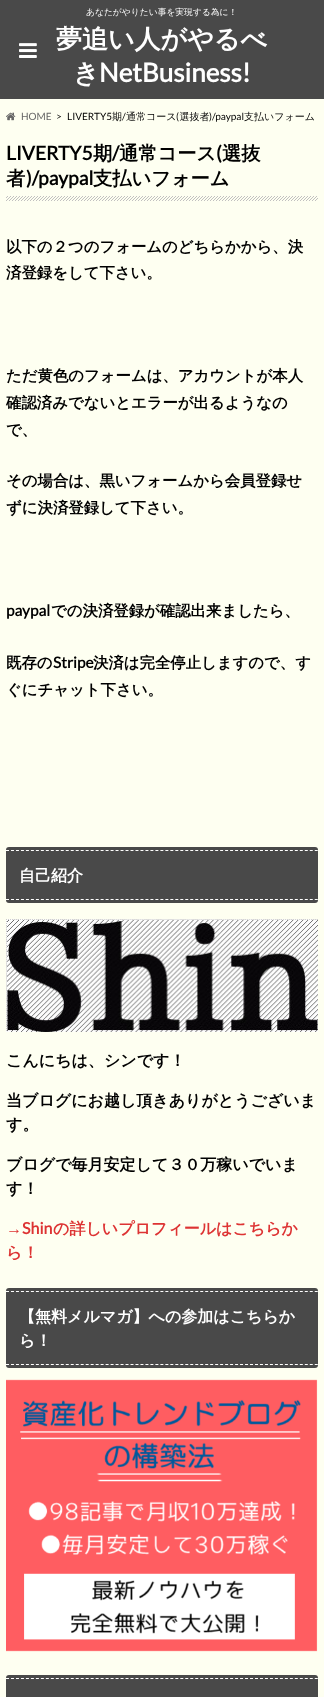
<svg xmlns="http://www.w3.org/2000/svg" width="324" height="1697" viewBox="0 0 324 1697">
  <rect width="100%" height="100%" fill="#fefff1"/>
  <rect x="0" y="0" width="324" height="99" fill="#494949"/>
  <text x="86" y="15" font-family="WenQuanYi Zen Hei" font-size="8.75" font-weight="500" fill="#ffffff">あなたがやりたい事を実現する為に！</text>
  <image x="19" y="43" width="18" height="15" href="img1.png"/>
  <text x="56" y="48" font-family="WenQuanYi Zen Hei" font-size="26" font-weight="bold" fill="#ffffff">夢追い人がやるべ</text>
  <text x="73" y="82" font-family="WenQuanYi Zen Hei" font-size="26" font-weight="bold" fill="#ffffff">き</text>
  <text x="99" y="82" font-family="Lato" font-size="26" font-weight="bold" fill="#ffffff">NetBusiness!</text>
  <image x="6" y="112" width="10" height="9" href="img2.png"/>
  <text x="21" y="120" font-family="Lato" font-size="10" fill="#666666">HOME</text>
  <text x="56" y="120" font-family="Lato" font-size="10" fill="#000000">&gt;</text>
  <text x="67" y="120" font-family="Lato" font-size="10" fill="#000000">LIVERTY5</text>
  <text x="112" y="120" font-family="WenQuanYi Zen Hei" font-size="10" font-weight="500" fill="#000000">期</text>
  <text x="122" y="120" font-family="Lato" font-size="10" fill="#000000">/</text>
  <text x="126" y="120" font-family="WenQuanYi Zen Hei" font-size="10" font-weight="500" fill="#000000">通常コース 選抜者</text>
  <text x="244" y="120" font-family="WenQuanYi Zen Hei" font-size="10" font-weight="500" fill="#000000">支払いフォーム</text>
  <text x="176" y="120" font-family="Lato" font-size="10" fill="#000000">(</text>
  <text x="209" y="120" font-family="Lato" font-size="10" fill="#000000">)/paypal</text>
  <image x="6" y="196" width="312" height="5" href="img3.png"/>
  <text x="93" y="160" font-family="WenQuanYi Zen Hei" font-size="19.25" font-weight="bold" fill="#000000">期</text>
  <text x="112" y="160" font-family="Lato" font-size="19.25" font-weight="bold" fill="#000000">/</text>
  <text x="119" y="160" font-family="WenQuanYi Zen Hei" font-size="19.25" font-weight="bold" fill="#000000">通常コース 選抜</text>
  <text x="6" y="160" font-family="Lato" font-size="19.25" font-weight="bold" fill="#000000">LIVERTY5</text>
  <text x="216" y="160" font-family="Lato" font-size="19.25" font-weight="bold" fill="#000000">(</text>
  <text x="6" y="185" font-family="WenQuanYi Zen Hei" font-size="19.25" font-weight="bold" fill="#000000">者</text>
  <text x="26" y="185" font-family="Lato" font-size="19.25" font-weight="bold" fill="#000000">)/paypal</text>
  <text x="93" y="185" font-family="WenQuanYi Zen Hei" font-size="19.25" font-weight="bold" fill="#000000">支払いフォーム</text>
  <text x="6" y="252" font-family="WenQuanYi Zen Hei" font-size="15.4" font-weight="bold" fill="#000000">以下の２つのフォームのどちらかから、決</text>
  <text x="6" y="278" font-family="WenQuanYi Zen Hei" font-size="15.4" font-weight="bold" fill="#000000">済登録をして下さい。</text>
  <text x="6" y="381" font-family="WenQuanYi Zen Hei" font-size="15.4" font-weight="bold" fill="#000000">ただ黄色のフォームは、アカウントが本人</text>
  <text x="6" y="408" font-family="WenQuanYi Zen Hei" font-size="15.4" font-weight="bold" fill="#000000">確認済みでないとエラーが出るようなの</text>
  <text x="6" y="435" font-family="WenQuanYi Zen Hei" font-size="15.4" font-weight="bold" fill="#000000">で、</text>
  <text x="6" y="486" font-family="WenQuanYi Zen Hei" font-size="15.4" font-weight="bold" fill="#000000">その場合は、黒いフォームから会員登録せ</text>
  <text x="6" y="513" font-family="WenQuanYi Zen Hei" font-size="15.4" font-weight="bold" fill="#000000">ずに決済登録して下さい。</text>
  <text x="6" y="616" font-family="Lato" font-size="15.4" font-weight="bold" fill="#000000">paypal</text>
  <text x="51" y="616" font-family="WenQuanYi Zen Hei" font-size="15.4" font-weight="bold" fill="#000000">での決済登録が確認出来ましたら、</text>
  <text x="6" y="668" font-family="WenQuanYi Zen Hei" font-size="15.4" font-weight="bold" fill="#000000">既存の</text>
  <text x="53" y="668" font-family="Lato" font-size="15.4" font-weight="bold" fill="#000000">Stripe</text>
  <text x="93" y="668" font-family="WenQuanYi Zen Hei" font-size="15.4" font-weight="bold" fill="#000000">決済は完全停止しますので、す</text>
  <text x="6" y="695" font-family="WenQuanYi Zen Hei" font-size="15.4" font-weight="bold" fill="#000000">ぐにチャット下さい。</text>
  <rect x="6" y="847" width="312" height="56" rx="3" fill="#494949"/>
  <path d="M6 850.5H318" fill="none" stroke="#ffffff" stroke-dasharray="3 1.98"/>
  <path d="M6 899.5H318" fill="none" stroke="#ffffff" stroke-dasharray="3 1.98"/>
  <text x="19" y="881" font-family="WenQuanYi Zen Hei" font-size="16" font-weight="bold" fill="#ffffff">自己紹介</text>
  <image x="6" y="919" width="312" height="113" href="img4.png"/>
  <text x="6" y="1066" font-family="WenQuanYi Zen Hei" font-size="16" font-weight="bold" fill="#000000">こんにちは、シンです！</text>
  <text x="6" y="1106" font-family="WenQuanYi Zen Hei" font-size="16" font-weight="bold" fill="#000000">当ブログにお越し頂きありがとうございま</text>
  <text x="6" y="1130" font-family="WenQuanYi Zen Hei" font-size="16" font-weight="bold" fill="#000000">す。</text>
  <text x="6" y="1170" font-family="WenQuanYi Zen Hei" font-size="16" font-weight="bold" fill="#000000">ブログで毎月安定して３０万稼いでいま</text>
  <text x="6" y="1194" font-family="WenQuanYi Zen Hei" font-size="16" font-weight="bold" fill="#000000">す！</text>
  <text x="6" y="1234" font-family="Liberation Sans" font-size="16" font-weight="bold" fill="#dd3333">→</text>
  <text x="22" y="1234" font-family="Lato" font-size="16" font-weight="bold" fill="#dd3333">Shin</text>
  <text x="53" y="1234" font-family="WenQuanYi Zen Hei" font-size="16" font-weight="bold" fill="#dd3333">の詳しいプロフィールはこちらか</text>
  <text x="6" y="1258" font-family="WenQuanYi Zen Hei" font-size="16" font-weight="bold" fill="#dd3333">ら！</text>
  <rect x="6" y="1288" width="312" height="80" rx="3" fill="#494949"/>
  <path d="M6 1291.5H318" fill="none" stroke="#ffffff" stroke-dasharray="3 1.98"/>
  <path d="M6 1364.5H318" fill="none" stroke="#ffffff" stroke-dasharray="3 1.98"/>
  <text x="19" y="1322" font-family="WenQuanYi Zen Hei" font-size="16" font-weight="bold" fill="#ffffff">【無料メルマガ】への参加はこちらか</text>
  <text x="19" y="1346" font-family="WenQuanYi Zen Hei" font-size="16" font-weight="bold" fill="#ffffff">ら！</text>
  <image x="6" y="1379" width="312" height="273" href="img5.png"/>
  <rect x="6" y="1675" width="312" height="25" rx="3" fill="#494949"/>
  <path d="M6 1678.5H318" fill="none" stroke="#ffffff" stroke-dasharray="3 1.98"/>
</svg>
